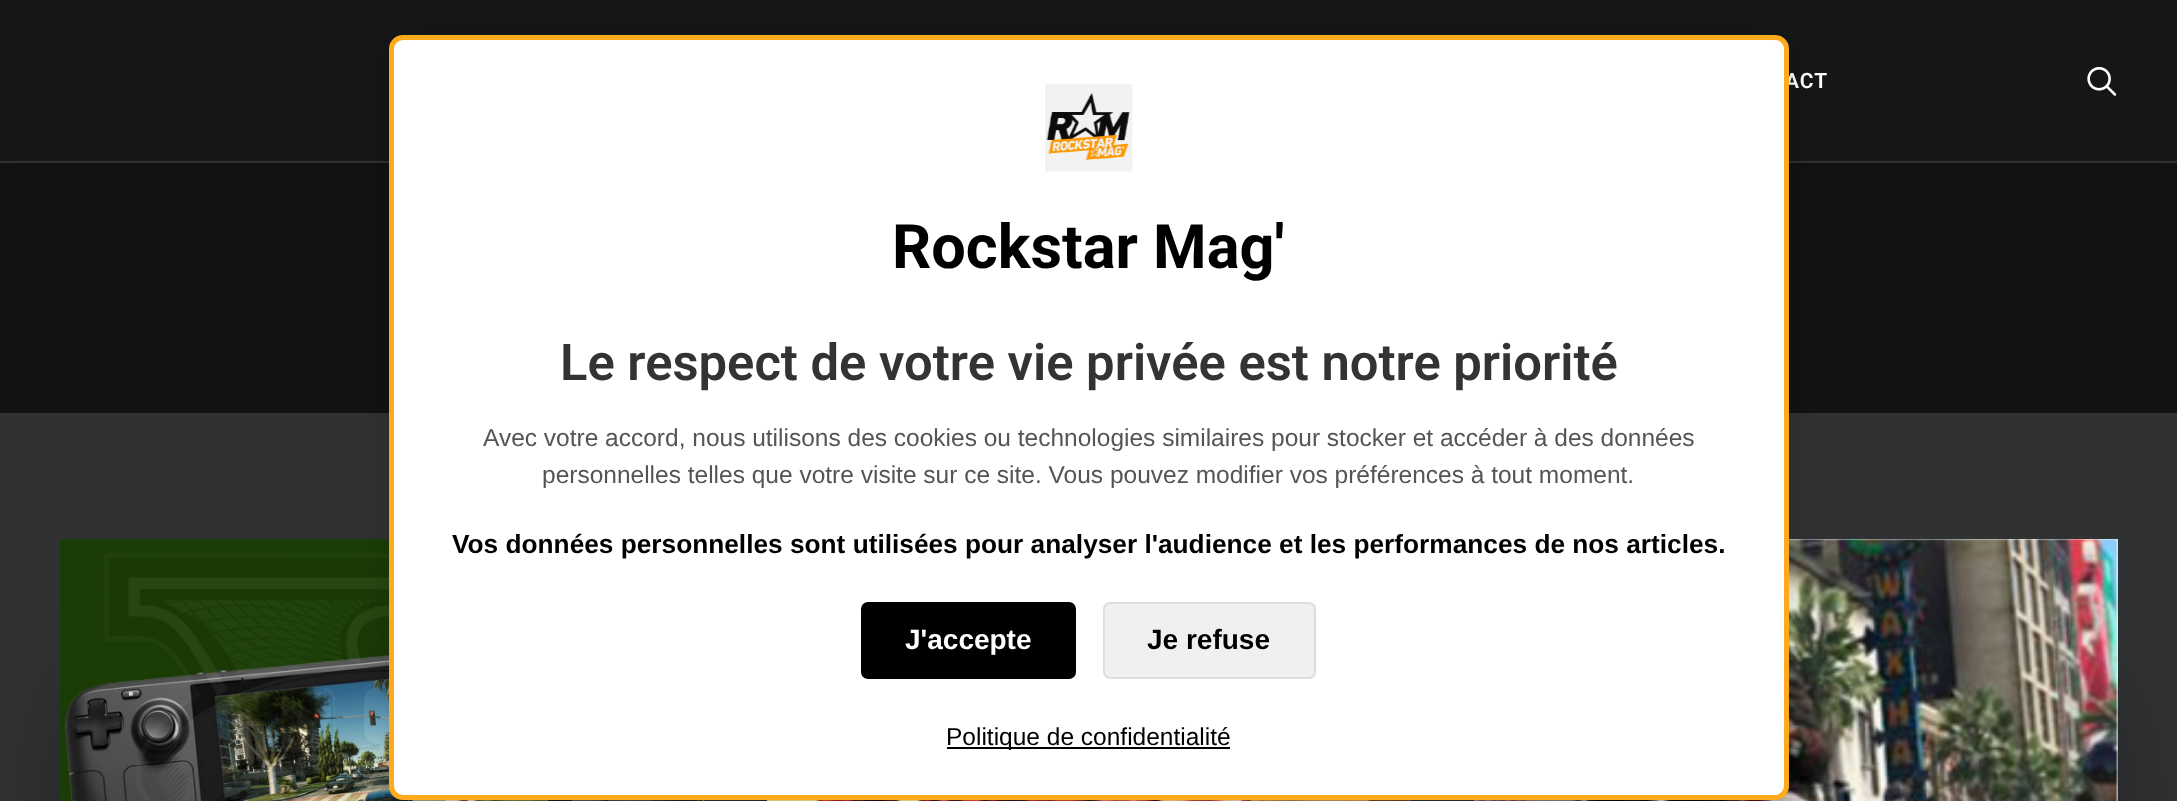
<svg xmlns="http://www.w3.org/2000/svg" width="2177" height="801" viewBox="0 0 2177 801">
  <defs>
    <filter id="blur1" x="-50%" y="-200%" width="200%" height="500%"><feGaussianBlur stdDeviation="9"/></filter>
    <filter id="blur2" x="-50%" y="-200%" width="200%" height="500%"><feGaussianBlur stdDeviation="70"/></filter>
    <filter id="blur3" x="-50%" y="-200%" width="200%" height="500%"><feGaussianBlur stdDeviation="17.5"/></filter>
  </defs>
  <rect width="100%" height="100%" fill="#101213"/>
  <rect x="14" y="25" width="2149" height="127" fill="#000000" fill-opacity="0.6" filter="url(#blur1)"/>
  <rect x="0" y="0" width="2177" height="161" fill="#141618"/>
  <rect x="0" y="161" width="2177" height="2" fill="#303133"/>
  <text x="1785" y="88" font-family="Roboto" font-size="21" font-weight="600" letter-spacing="1" fill="#ffffff">ACT</text>
  <image x="2087" y="66" width="30" height="30" href="img1.png"/>
  <rect x="0" y="413" width="2177" height="388" fill="#303133"/>
  <rect x="130" y="705" width="504" height="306" fill="#000000" filter="url(#blur2)"/>
  <rect x="703" y="800" width="1" height="1" fill="#ffffff"/>
  <rect x="837" y="642" width="504" height="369" fill="#000000" filter="url(#blur2)"/>
  <image x="60" y="539" width="644" height="262" href="img2.png"/>
  <rect x="1544" y="705" width="504" height="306" fill="#000000" filter="url(#blur2)"/>
  <image x="767" y="800" width="644" height="1" href="img3.png"/>
  <rect x="1789" y="539" width="329" height="262" fill="#ffffff"/>
  <image x="1474" y="539" width="644" height="262" href="img4.png"/>
  <rect x="389" y="42" width="1400" height="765" rx="14" fill="#000000" fill-opacity="0.15" filter="url(#blur3)"/>
  <rect x="391.5" y="37.5" width="1395" height="760" rx="11.5" fill="#ffffff" stroke="#fdab1c" stroke-width="5"/>
  <image x="1045" y="84" width="88" height="88" href="img5.png"/>
  <text x="892" y="268" font-family="Roboto" font-size="61.25" font-weight="bold" fill="#000000">Rockstar Mag'</text>
  <text x="560" y="380" font-family="Roboto" font-size="50.75" font-weight="600" fill="#333333">Le respect de votre vie privée est notre priorité</text>
  <text x="483" y="446" font-family="Liberation Sans" font-size="24.5" fill="#555555">Avec votre accord, nous utilisons des cookies ou technologies similaires pour stocker et accéder à des données</text>
  <text x="542" y="483" font-family="Liberation Sans" font-size="24.5" fill="#555555">personnelles telles que votre visite sur ce site. Vous pouvez modifier vos préférences à tout moment.</text>
  <text x="452" y="553" font-family="Liberation Sans" font-size="26.25" font-weight="bold" fill="#000000">Vos données personnelles sont utilisées pour analyser l'audience et les performances de nos articles.</text>
  <rect x="861" y="602" width="215" height="77" rx="7" fill="#000000"/>
  <text x="905" y="649" font-family="Liberation Sans" font-size="28" font-weight="bold" fill="#ffffff">J'accepte</text>
  <rect x="1104" y="603" width="211" height="75" rx="6" fill="#f0f0f0" stroke="#dddddd" stroke-width="2"/>
  <text x="1147" y="649" font-family="Liberation Sans" font-size="28" font-weight="bold" fill="#000000">Je refuse</text>
  <rect x="947" y="747" width="283" height="2" fill="#000000"/>
  <text x="946" y="745" font-family="Liberation Sans" font-size="24.5" fill="#000000">Politique de confidentialité</text>
</svg>
